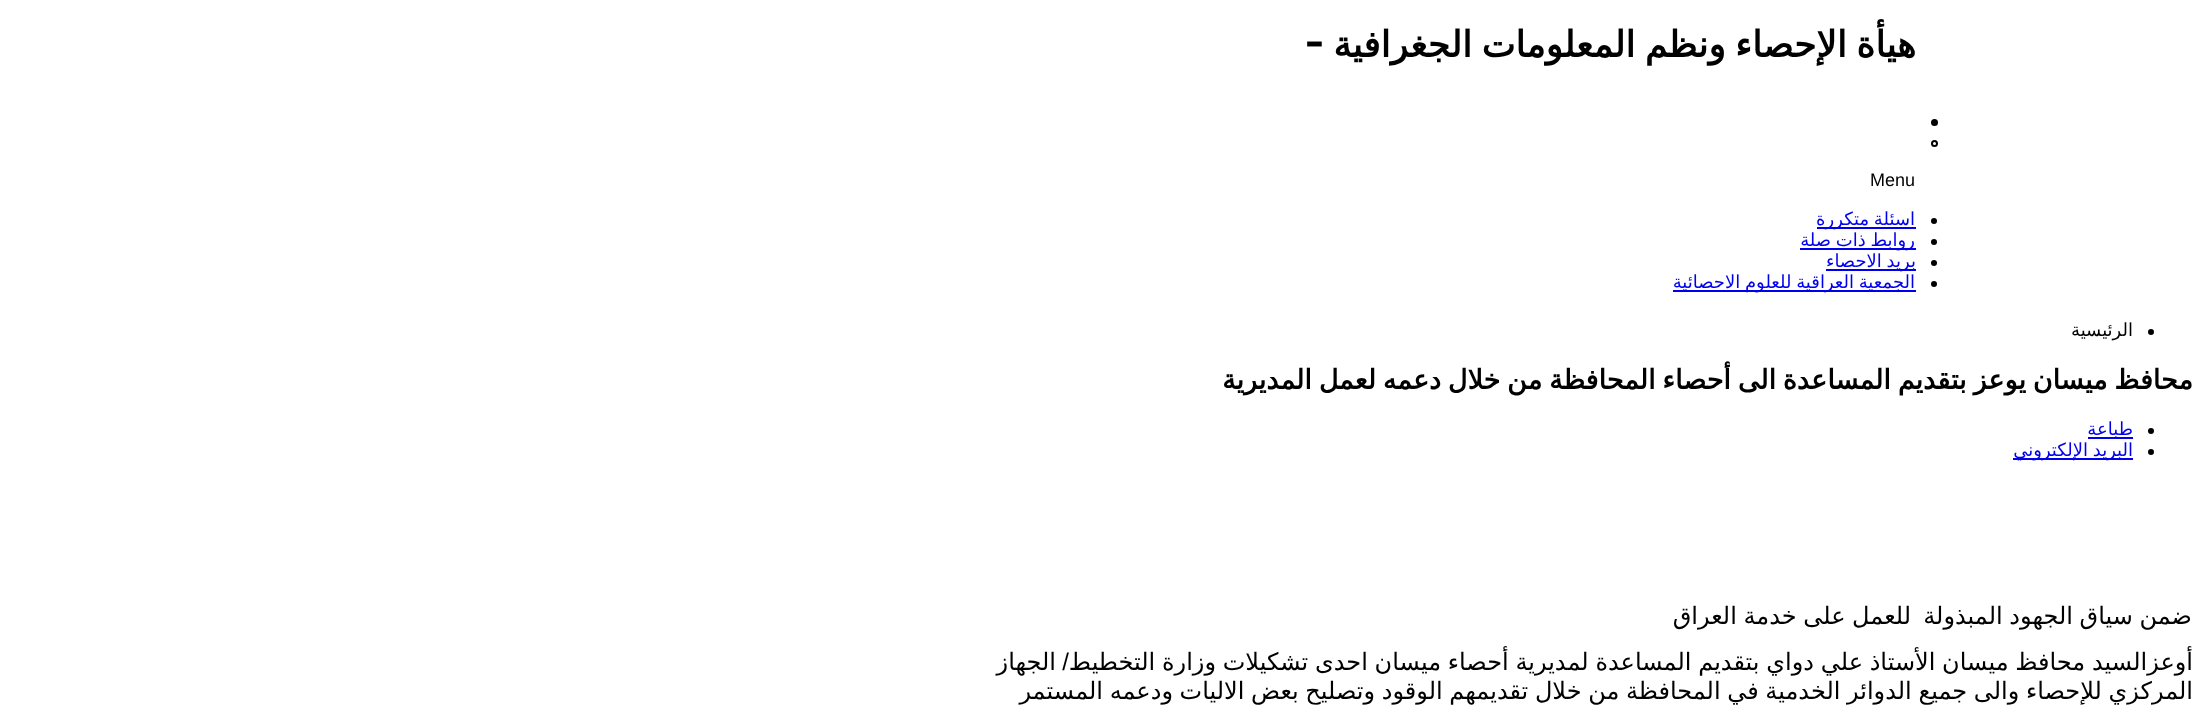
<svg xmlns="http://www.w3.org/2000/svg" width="2205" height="707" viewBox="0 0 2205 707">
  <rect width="100%" height="100%" fill="#ffffff"/>
  <text x="1916" y="57" word-spacing="-2" font-family="DejaVu Sans" font-size="36" font-weight="bold" direction="rtl" fill="#000000">هيأة الإحصاء ونظم المعلومات الجغرافية</text>
  <text x="1325" y="57" font-family="Nobile" font-size="36" font-weight="bold" direction="rtl" fill="#000000">-</text>
  <text x="1870" y="186" font-family="Liberation Sans" font-size="18" fill="#000000">Menu</text>
  <circle cx="1934" cy="221" r="3" fill="#000000"/>
  <rect x="1817" y="227" width="99" height="2" fill="#0000ee"/>
  <text x="1915" y="225" word-spacing="-1" font-family="DejaVu Sans" font-size="18" direction="rtl" fill="#0000ee">اسئلة متكررة</text>
  <circle cx="1934" cy="242" r="3" fill="#000000"/>
  <rect x="1800" y="248" width="116" height="2" fill="#0000ee"/>
  <text x="1915" y="246" word-spacing="-1" font-family="DejaVu Sans" font-size="18" direction="rtl" fill="#0000ee">روابط ذات صلة</text>
  <circle cx="1934" cy="263" r="3" fill="#000000"/>
  <rect x="1826" y="269" width="90" height="2" fill="#0000ee"/>
  <text x="1916" y="267" word-spacing="-1" font-family="DejaVu Sans" font-size="18" direction="rtl" fill="#0000ee">بريد الاحصاء</text>
  <circle cx="1934" cy="284" r="3" fill="#000000"/>
  <rect x="1673" y="290" width="243" height="2" fill="#0000ee"/>
  <text x="1915" y="288" word-spacing="-1" font-family="DejaVu Sans" font-size="18" direction="rtl" fill="#0000ee">الجمعية العراقية للعلوم الاحصائية</text>
  <circle cx="1934.5" cy="122.5" r="2.5" fill="#000000" stroke="#000000" stroke-width="2"/>
  <circle cx="1934.5" cy="143.5" r="2.5" fill="none" stroke="#000000" stroke-width="2"/>
  <circle cx="2151" cy="332" r="3" fill="#000000"/>
  <text x="2133" y="336" font-family="DejaVu Sans" font-size="18" direction="rtl" fill="#000000">الرئيسية</text>
  <text x="2193" y="389" word-spacing="-1.75" font-family="DejaVu Sans" font-size="27" font-weight="bold" direction="rtl" fill="#000000">محافظ ميسان يوعز بتقديم المساعدة الى أحصاء المحافظة من خلال دعمه لعمل المديرية</text>
  <circle cx="2151" cy="431" r="3" fill="#000000"/>
  <rect x="2088" y="437" width="45" height="2" fill="#0000ee"/>
  <text x="2133" y="435" font-family="DejaVu Sans" font-size="18" direction="rtl" fill="#0000ee">طباعة</text>
  <circle cx="2151" cy="452" r="3" fill="#000000"/>
  <rect x="2013" y="458" width="120" height="2" fill="#0000ee"/>
  <text x="2133" y="456" word-spacing="-1" font-family="DejaVu Sans" font-size="18" direction="rtl" fill="#0000ee">البريد الإلكتروني</text>
  <text x="2192" y="624" word-spacing="-1" font-family="DejaVu Sans" font-size="24" direction="rtl" fill="#000000">ضمن سياق الجهود المبذولة</text>
  <text x="1911" y="624" word-spacing="-1" font-family="DejaVu Sans" font-size="24" direction="rtl" fill="#000000">للعمل على خدمة العراق</text>
  <text x="2193" y="670" word-spacing="-0.9" font-family="DejaVu Sans" font-size="24" direction="rtl" fill="#000000">أوعزالسيد محافظ ميسان الأستاذ علي دواي بتقديم المساعدة لمديرية أحصاء ميسان احدى تشكيلات وزارة التخطيط</text>
  <text x="1069" y="670" font-family="Liberation Sans" font-size="24" direction="rtl" fill="#000000">/</text>
  <text x="1056" y="670" font-family="DejaVu Sans" font-size="24" direction="rtl" fill="#000000">الجهاز</text>
  <text x="2193" y="699" word-spacing="-1" font-family="DejaVu Sans" font-size="24" direction="rtl" fill="#000000">المركزي للإحصاء والى جميع الدوائر الخدمية في المحافظة من خلال تقديمهم الوقود وتصليح بعض الاليات ودعمه المستمر</text>
</svg>
